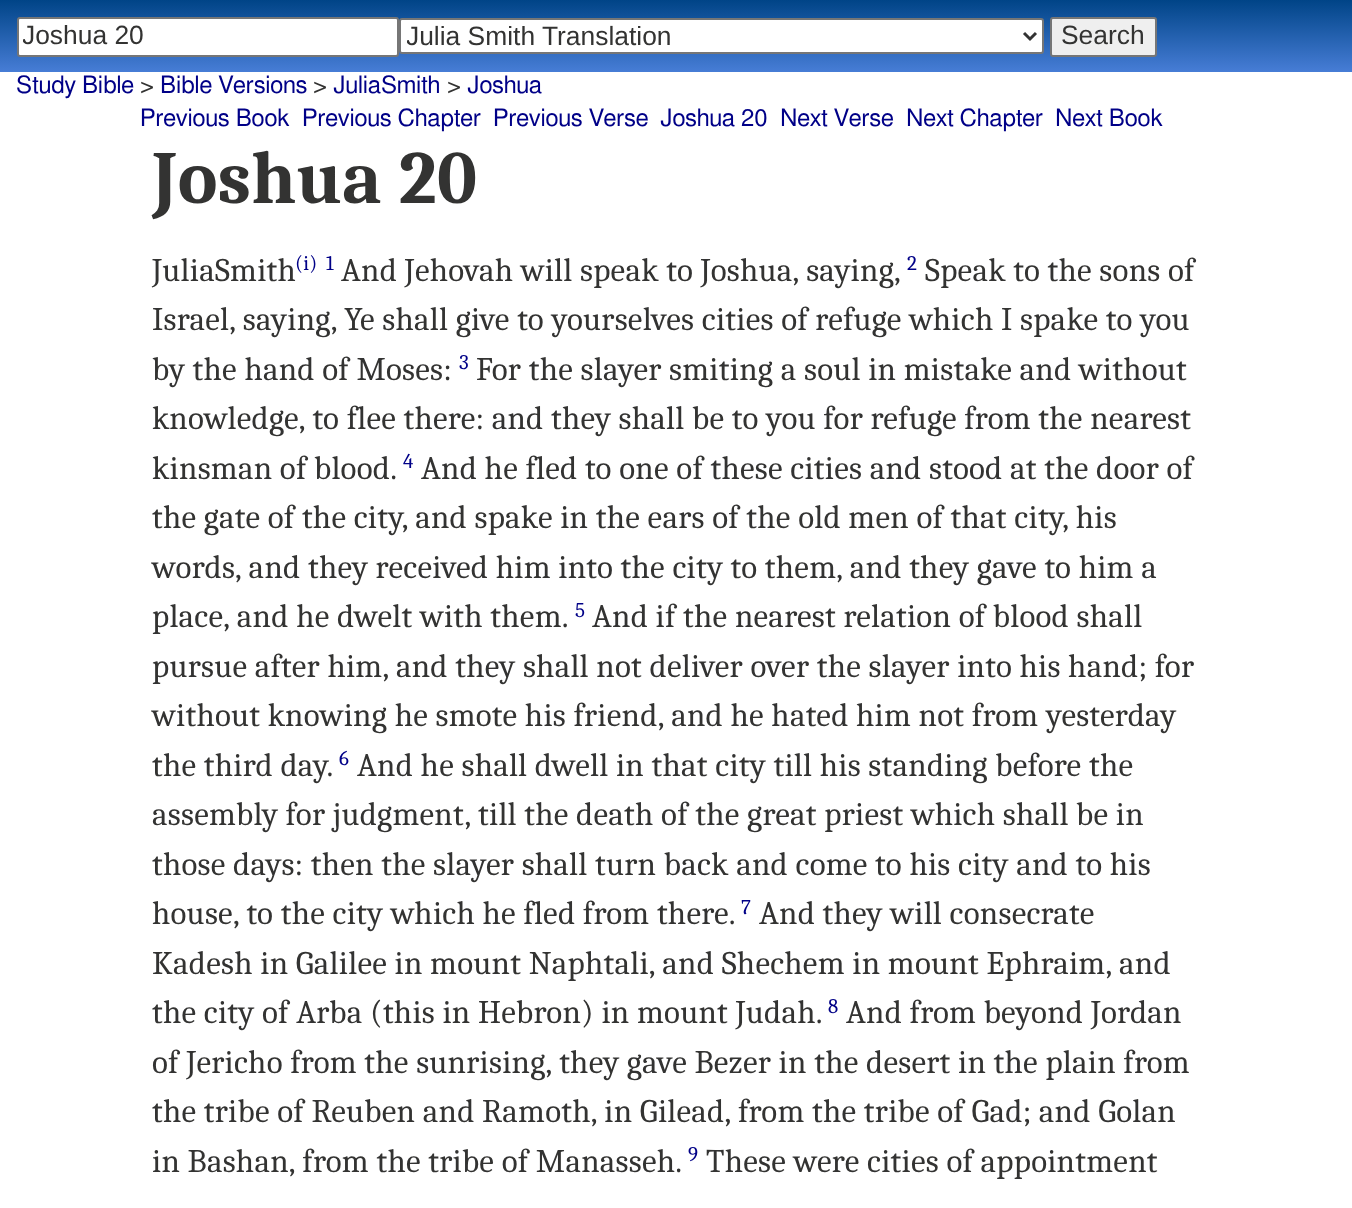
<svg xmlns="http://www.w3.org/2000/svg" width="1352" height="1208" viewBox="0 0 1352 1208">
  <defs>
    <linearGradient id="g1" gradientUnits="userSpaceOnUse" x1="677" y1="0" x2="677" y2="72"><stop offset="0" stop-color="#004487"/><stop offset="1" stop-color="#477dd6"/></linearGradient>
    <clipPath id="clip1"><rect x="23" y="21" width="346" height="32"/></clipPath>
    <clipPath id="clip2"><rect x="407" y="20" width="612" height="33"/></clipPath>
  </defs>
  <rect width="100%" height="100%" fill="#ffffff"/>
  <rect x="0" y="0" width="1352" height="72" fill="url(#g1)"/>
  <rect x="18" y="18" width="380" height="38" rx="2" fill="#ffffff" stroke="#767676" stroke-width="2"/>
  <g clip-path="url(#clip1)">
    <text x="22" y="44" font-family="Liberation Sans" font-size="26.4" fill="#333332">Joshua 20</text>
  </g>
  <rect x="400" y="19" width="643" height="34" rx="2" fill="#ffffff" stroke="#767676" stroke-width="2"/>
  <path d="M1024 33L1030 39L1036 33" fill="none" stroke="#333333" stroke-width="3"/>
  <g clip-path="url(#clip2)">
    <text x="406" y="45" font-family="Liberation Sans" font-size="26.4" fill="#333332">Julia Smith Translation</text>
  </g>
  <rect x="1051" y="18" width="105" height="38" rx="2" fill="#efefef" stroke="#767676" stroke-width="2"/>
  <text x="1061" y="44" font-family="Liberation Sans" font-size="26.4" fill="#333332">Search</text>
  <text x="16" y="93" font-family="FreeSans" font-size="24" fill="#000087">Study Bible</text>
  <text x="140" y="93" font-family="FreeSans" font-size="24" fill="#333332">&gt;</text>
  <text x="160" y="93" font-family="FreeSans" font-size="24" fill="#000087">Bible Versions</text>
  <text x="313" y="93" font-family="FreeSans" font-size="24" fill="#333332">&gt;</text>
  <text x="333" y="93" font-family="FreeSans" font-size="24" fill="#000087">JuliaSmith</text>
  <text x="447" y="93" font-family="FreeSans" font-size="24" fill="#333332">&gt;</text>
  <text x="467" y="93" font-family="FreeSans" font-size="24" fill="#000087">Joshua</text>
  <text x="140" y="126" font-family="FreeSans" font-size="24" fill="#000087">Previous Book</text>
  <text x="302" y="126" font-family="FreeSans" font-size="24" fill="#000087">Previous Chapter</text>
  <text x="493" y="126" font-family="FreeSans" font-size="24" fill="#000087">Previous Verse</text>
  <text x="660" y="126" font-family="FreeSans" font-size="24" fill="#000087">Joshua 20</text>
  <text x="780" y="126" font-family="FreeSans" font-size="24" fill="#000087">Next Verse</text>
  <text x="906" y="126" font-family="FreeSans" font-size="24" fill="#000087">Next Chapter</text>
  <text x="1055" y="126" font-family="FreeSans" font-size="24" fill="#000087">Next Book</text>
  <text x="152" y="203" font-family="Caladea" font-size="75" font-weight="bold" letter-spacing="0.25" fill="#333332">Joshua 20</text>
  <text x="152" y="281" font-family="Caladea" font-size="33" letter-spacing="0.25" fill="#333332">JuliaSmith</text>
  <text x="295" y="270" font-family="Caladea" font-size="21" letter-spacing="0.25" fill="#000087">(i)</text>
  <text x="326" y="270" font-family="Caladea" font-size="21" letter-spacing="0.25" fill="#000087">1</text>
  <text x="341" y="281" font-family="Caladea" font-size="33" letter-spacing="0.25" fill="#333332">And Jehovah will speak to Joshua, saying,</text>
  <text x="907" y="270" font-family="Caladea" font-size="21" letter-spacing="0.25" fill="#000087">2</text>
  <text x="925" y="281" font-family="Caladea" font-size="33" letter-spacing="0.25" fill="#333332">Speak to the sons of</text>
  <text x="152" y="330" font-family="Caladea" font-size="33" letter-spacing="0.25" fill="#333332">Israel, saying, Ye shall give to yourselves cities of refuge which I spake to you</text>
  <text x="152" y="380" font-family="Caladea" font-size="33" letter-spacing="0.25" fill="#333332">by the hand of Moses:</text>
  <text x="459" y="369" font-family="Caladea" font-size="21" letter-spacing="0.25" fill="#000087">3</text>
  <text x="476" y="380" font-family="Caladea" font-size="33" letter-spacing="0.25" fill="#333332">For the slayer smiting a soul in mistake and without</text>
  <text x="152" y="429" font-family="Caladea" font-size="33" letter-spacing="0.25" fill="#333332">knowledge, to flee there: and they shall be to you for refuge from the nearest</text>
  <text x="152" y="479" font-family="Caladea" font-size="33" letter-spacing="0.25" fill="#333332">kinsman of blood.</text>
  <text x="403" y="468" font-family="Caladea" font-size="21" letter-spacing="0.25" fill="#000087">4</text>
  <text x="421" y="479" font-family="Caladea" font-size="33" letter-spacing="0.25" fill="#333332">And he fled to one of these cities and stood at the door of</text>
  <text x="152" y="528" font-family="Caladea" font-size="33" letter-spacing="0.25" fill="#333332">the gate of the city, and spake in the ears of the old men of that city, his</text>
  <text x="152" y="578" font-family="Caladea" font-size="33" letter-spacing="0.25" fill="#333332">words, and they received him into the city to them, and they gave to him a</text>
  <text x="152" y="627" font-family="Caladea" font-size="33" letter-spacing="0.25" fill="#333332">place, and he dwelt with them.</text>
  <text x="575" y="617" font-family="Caladea" font-size="21" letter-spacing="0.25" fill="#000087">5</text>
  <text x="592" y="627" font-family="Caladea" font-size="33" letter-spacing="0.25" fill="#333332">And if the nearest relation of blood shall</text>
  <text x="152" y="677" font-family="Caladea" font-size="33" letter-spacing="0.25" fill="#333332">pursue after him, and they shall not deliver over the slayer into his hand; for</text>
  <text x="152" y="726" font-family="Caladea" font-size="33" letter-spacing="0.25" fill="#333332">without knowing he smote his friend, and he hated him not from yesterday</text>
  <text x="152" y="776" font-family="Caladea" font-size="33" letter-spacing="0.25" fill="#333332">the third day.</text>
  <text x="339" y="765" font-family="Caladea" font-size="21" letter-spacing="0.25" fill="#000087">6</text>
  <text x="357" y="776" font-family="Caladea" font-size="33" letter-spacing="0.25" fill="#333332">And he shall dwell in that city till his standing before the</text>
  <text x="152" y="825" font-family="Caladea" font-size="33" letter-spacing="0.25" fill="#333332">assembly for judgment, till the death of the great priest which shall be in</text>
  <text x="152" y="875" font-family="Caladea" font-size="33" letter-spacing="0.25" fill="#333332">those days: then the slayer shall turn back and come to his city and to his</text>
  <text x="152" y="924" font-family="Caladea" font-size="33" letter-spacing="0.25" fill="#333332">house, to the city which he fled from there.</text>
  <text x="741" y="914" font-family="Caladea" font-size="21" letter-spacing="0.25" fill="#000087">7</text>
  <text x="759" y="924" font-family="Caladea" font-size="33" letter-spacing="0.25" fill="#333332">And they will consecrate</text>
  <text x="152" y="974" font-family="Caladea" font-size="33" letter-spacing="0.25" fill="#333332">Kadesh in Galilee in mount Naphtali, and Shechem in mount Ephraim, and</text>
  <text x="152" y="1023" font-family="Caladea" font-size="33" letter-spacing="0.25" fill="#333332">the city of Arba (this in Hebron) in mount Judah.</text>
  <text x="828" y="1013" font-family="Caladea" font-size="21" letter-spacing="0.25" fill="#000087">8</text>
  <text x="846" y="1023" font-family="Caladea" font-size="33" letter-spacing="0.25" fill="#333332">And from beyond Jordan</text>
  <text x="152" y="1073" font-family="Caladea" font-size="33" letter-spacing="0.25" fill="#333332">of Jericho from the sunrising, they gave Bezer in the desert in the plain from</text>
  <text x="152" y="1122" font-family="Caladea" font-size="33" letter-spacing="0.25" fill="#333332">the tribe of Reuben and Ramoth, in Gilead, from the tribe of Gad; and Golan</text>
  <text x="152" y="1172" font-family="Caladea" font-size="33" letter-spacing="0.25" fill="#333332">in Bashan, from the tribe of Manasseh.</text>
  <text x="688" y="1161" font-family="Caladea" font-size="21" letter-spacing="0.25" fill="#000087">9</text>
  <text x="706" y="1172" font-family="Caladea" font-size="33" letter-spacing="0.25" fill="#333332">These were cities of appointment</text>
</svg>
